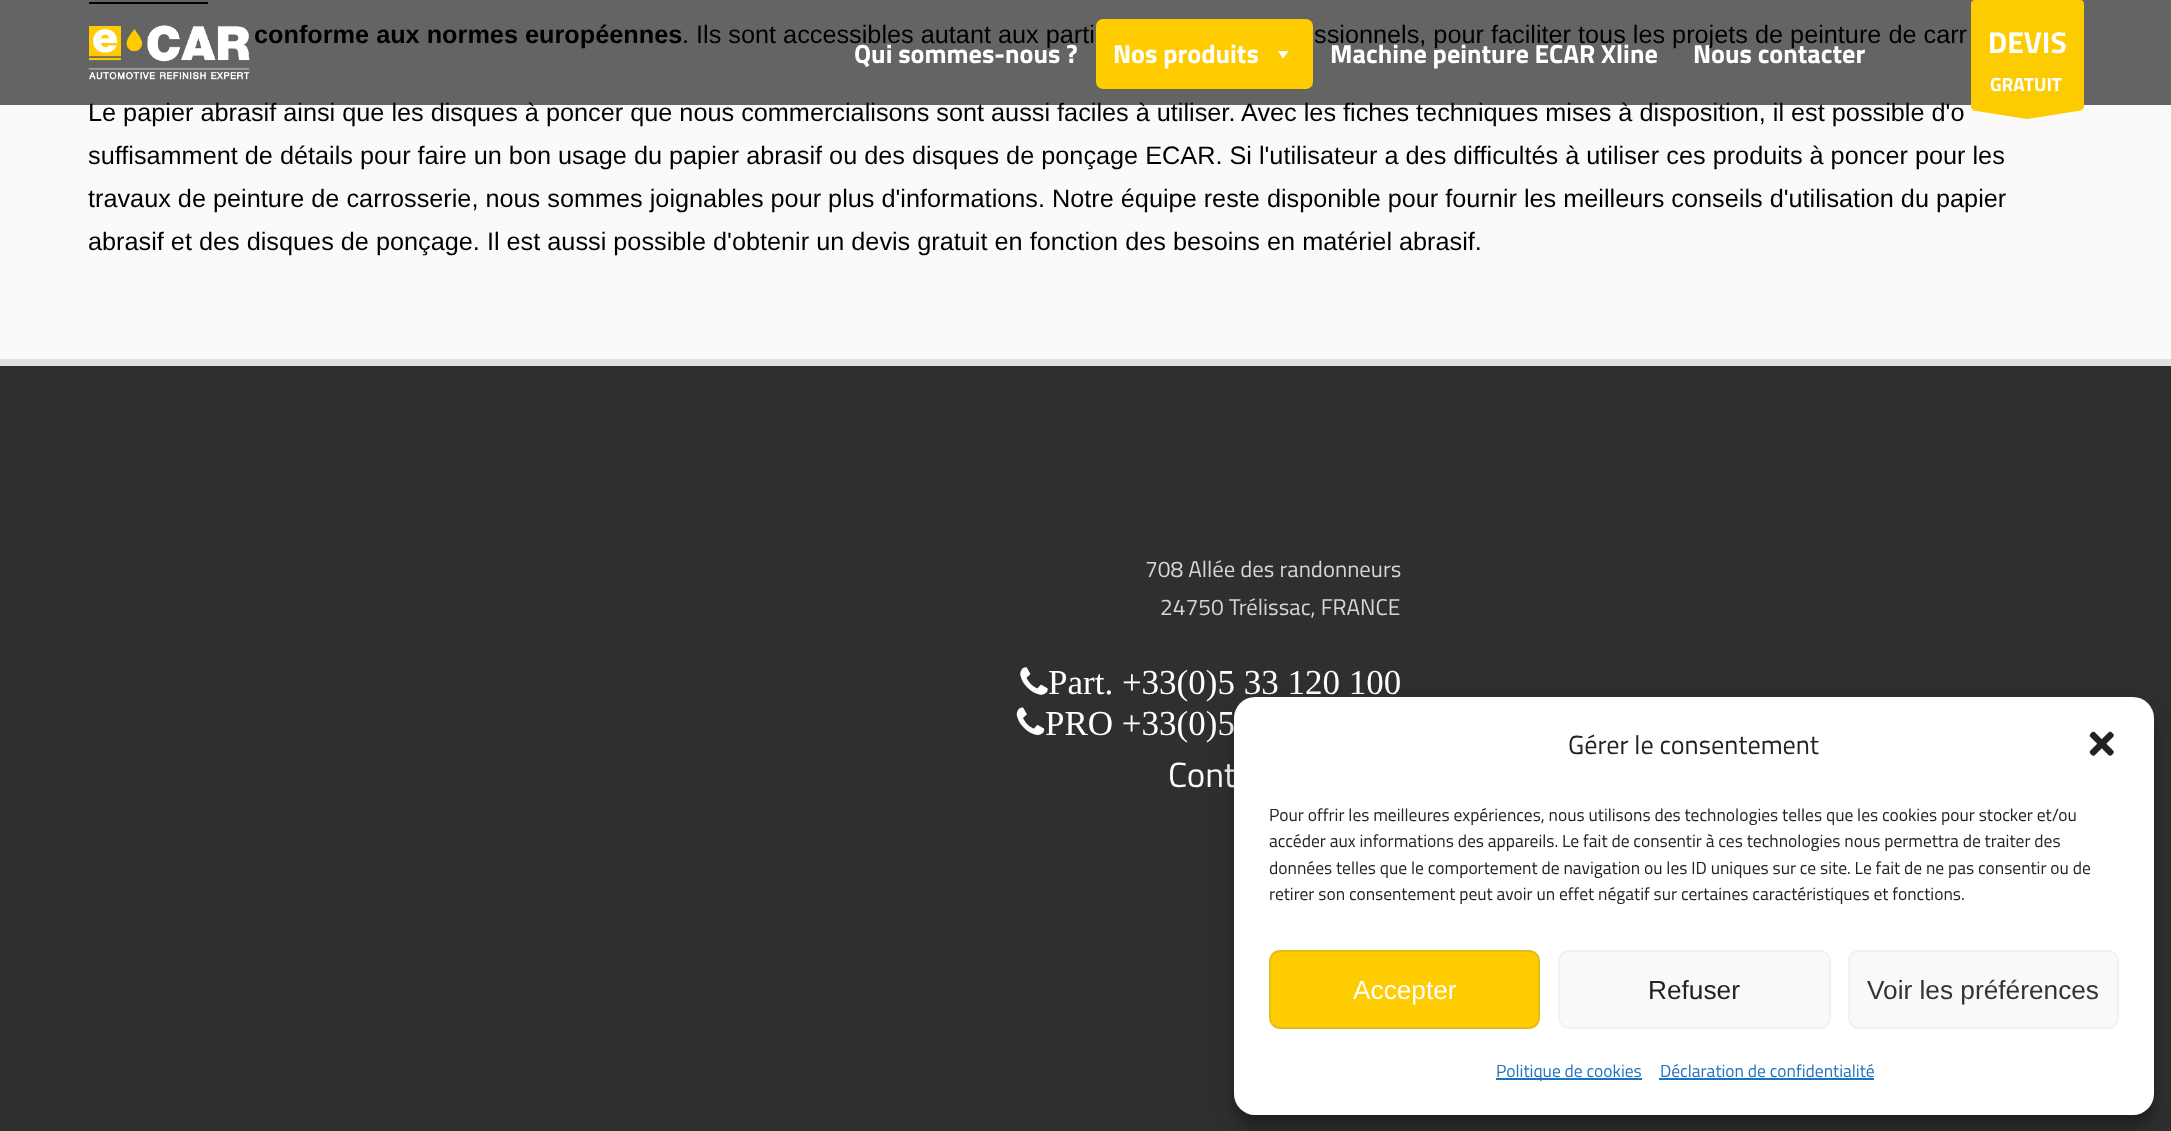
<svg xmlns="http://www.w3.org/2000/svg" width="2171" height="1131" viewBox="0 0 2171 1131">
  <defs>
    <filter id="blur1" x="-50%" y="-200%" width="200%" height="500%"><feGaussianBlur stdDeviation="5"/></filter>
    <filter id="blur2" x="-50%" y="-200%" width="200%" height="500%"><feGaussianBlur stdDeviation="17.5"/></filter>
  </defs>
  <rect width="100%" height="100%" fill="#fafafa"/>
  <rect x="89" y="2" width="119" height="2" fill="#000000"/>
  <text x="254" y="43" font-family="Liberation Sans" font-size="25.27" font-weight="bold" fill="#000000">conforme aux normes européennes</text>
  <text x="682" y="43" font-family="Liberation Sans" font-size="25.27" fill="#000000">. Ils sont accessibles autant aux parti</text>
  <text x="1314" y="43" font-family="Liberation Sans" font-size="25.27" fill="#000000">ssionnels, pour faciliter tous les projets de peinture de carr</text>
  <text x="88" y="121" font-family="Liberation Sans" font-size="25.27" fill="#000000">Le papier abrasif ainsi que les disques à poncer que nous commercialisons sont aussi faciles à utiliser. Avec les fiches techniques mises à disposition, il est possible d'o</text>
  <text x="88" y="164" font-family="Liberation Sans" font-size="25.27" fill="#000000">suffisamment de détails pour faire un bon usage du papier abrasif ou des disques de ponçage ECAR. Si l'utilisateur a des difficultés à utiliser ces produits à poncer pour les</text>
  <text x="88" y="207" font-family="Liberation Sans" font-size="25.27" fill="#000000">travaux de peinture de carrosserie, nous sommes joignables pour plus d'informations. Notre équipe reste disponible pour fournir les meilleurs conseils d'utilisation du papier</text>
  <text x="88" y="250" font-family="Liberation Sans" font-size="25.27" fill="#000000">abrasif et des disques de ponçage. Il est aussi possible d'obtenir un devis gratuit en fonction des besoins en matériel abrasif.</text>
  <rect x="0" y="0" width="2171" height="105" fill="#000000" fill-opacity="0.6"/>
  <image x="88" y="25" width="162" height="55" href="img1.png"/>
  <text x="854" y="63" font-family="Titillium Web" font-size="26.25" font-weight="bold" fill="#ffffff">Qui sommes-nous ?</text>
  <rect x="1096" y="19" width="217" height="70" rx="7" fill="#ffcc00"/>
  <text x="1113" y="63" font-family="Titillium Web" font-size="26.25" font-weight="bold" fill="#ffffff">Nos produits</text>
  <path d="M1288.5 51L1283 58.5L1278 51Z" fill="#ffffff"/>
  <text x="1330" y="63" font-family="Titillium Web" font-size="26.25" font-weight="bold" fill="#ffffff">Machine peinture ECAR Xline</text>
  <text x="1693" y="63" font-family="Titillium Web" font-size="26.25" font-weight="bold" fill="#ffffff">Nous contacter</text>
  <rect x="1971" y="0" width="113" height="110" rx="4" fill="#fccb00"/>
  <text x="1988" y="53" font-family="Titillium Web" font-size="30" font-weight="bold" fill="#ffffff">DEVIS</text>
  <text x="1990" y="91" font-family="Titillium Web" font-size="19" font-weight="bold" fill="#ffffff">GRATUIT</text>
  <path d="M2084 110L2027 119L1970 110Z" fill="#fccb00" fill-rule="evenodd"/>
  <rect x="0" y="366" width="2171" height="765" fill="#2f2f2f"/>
  <rect x="0" y="359" width="2171" height="7" fill="#e0e0e0"/>
  <text x="1145" y="577" font-family="Titillium Web" font-size="22.75" fill="#d5d5d5">708 Allée des randonneurs</text>
  <text x="1160" y="615" font-family="Titillium Web" font-size="22.75" fill="#d5d5d5">24750 Trélissac, FRANCE</text>
  <image x="1020" y="667" width="28" height="28" href="img2.png"/>
  <text x="1048" y="694" font-family="Liberation Serif" font-size="35" fill="#ffffff">Part. +33(0)5 33 120 100</text>
  <image x="1016" y="707" width="29" height="28" href="img3.png"/>
  <text x="1045" y="735" font-family="Liberation Serif" font-size="35" fill="#ffffff">PRO +33(0)5</text>
  <text x="1168" y="787" font-family="Titillium Web" font-size="35" fill="#ffffff">Cont</text>
  <rect x="1234" y="707" width="920" height="418" rx="21" fill="#000000" fill-opacity="0.23" filter="url(#blur1)"/>
  <rect x="1234" y="714" width="920" height="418" rx="21" fill="#000000" fill-opacity="0.19" filter="url(#blur2)"/>
  <rect x="1234" y="697" width="920" height="418" rx="21" fill="#ffffff"/>
  <text x="1568" y="754" font-family="Titillium Web" font-size="26.25" fill="#222222">Gérer le consentement</text>
  <image x="2089" y="731" width="25" height="25" href="img4.png"/>
  <text x="1269" y="821" font-family="Titillium Web" font-size="17.5" fill="#222222">Pour offrir les meilleures expériences, nous utilisons des technologies telles que les cookies pour stocker et/ou</text>
  <text x="1269" y="847" font-family="Titillium Web" font-size="17.5" fill="#222222">accéder aux informations des appareils. Le fait de consentir à ces technologies nous permettra de traiter des</text>
  <text x="1269" y="874" font-family="Titillium Web" font-size="17.5" fill="#222222">données telles que le comportement de navigation ou les ID uniques sur ce site. Le fait de ne pas consentir ou de</text>
  <text x="1269" y="900" font-family="Titillium Web" font-size="17.5" fill="#222222">retirer son consentement peut avoir un effet négatif sur certaines caractéristiques et fonctions.</text>
  <rect x="1270" y="951" width="269" height="77" rx="10" fill="#ffcc00" stroke="#e4bd1c" stroke-width="2"/>
  <text x="1353" y="999" font-family="Liberation Sans" font-size="26.25" fill="#ffffff">Accepter</text>
  <rect x="1559" y="951" width="271" height="77" rx="10" fill="#f9f9f9" stroke="#f2f2f2" stroke-width="2"/>
  <text x="1648" y="999" font-family="Liberation Sans" font-size="26.25" fill="#222222">Refuser</text>
  <rect x="1849" y="951" width="269" height="77" rx="10" fill="#f9f9f9" stroke="#f2f2f2" stroke-width="2"/>
  <text x="1867" y="999" font-family="Liberation Sans" font-size="26.25" fill="#333333">Voir les préférences</text>
  <rect x="1496" y="1078" width="146" height="2" fill="#1e73be"/>
  <text x="1496" y="1077" font-family="Titillium Web" font-size="17.5" fill="#1e73be">Politique de cookies</text>
  <text x="1660" y="1077" font-family="Titillium Web" font-size="17.5" fill="#1e73be">Déclaration de confidentialité</text>
  <rect x="1659" y="1078" width="215" height="2" fill="#1e73be"/>
</svg>
